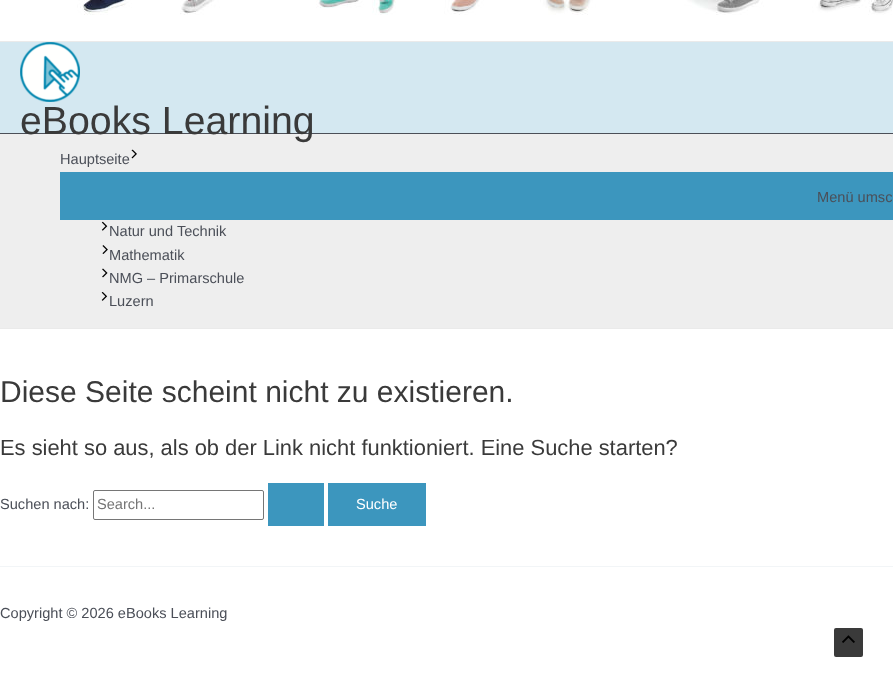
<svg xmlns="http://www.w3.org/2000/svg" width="893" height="687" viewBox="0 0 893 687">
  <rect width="100%" height="100%" fill="#ffffff"/>
  <rect x="0" y="41" width="893" height="1" fill="#eaeaea"/>
  <image x="77" y="0" width="816" height="15" href="img1.png"/>
  <rect x="0" y="42" width="893" height="91" fill="#d4e8f1"/>
  <rect x="0" y="133" width="893" height="1" fill="#4b4f58"/>
  <image x="20" y="42" width="60" height="60" href="img2.png"/>
  <rect x="0" y="134" width="893" height="194" fill="#eeeeee"/>
  <text x="20" y="134" font-family="Liberation Sans" font-size="39.25" fill="#3a3a3a">eBooks Learning</text>
  <rect x="0" y="328" width="893" height="1" fill="#eaeaea"/>
  <text x="60" y="164" font-family="Liberation Sans" font-size="14.6" fill="#4b4f58">Hauptseite</text>
  <image x="131" y="149" width="6" height="10" href="img3.png"/>
  <rect x="60" y="172" width="833" height="48" fill="#3c96be"/>
  <text x="817" y="202" font-family="Liberation Sans" font-size="14.6" fill="#4b4f58">Menü umsc</text>
  <image x="101" y="221" width="7" height="10" href="img4.png"/>
  <text x="109" y="236" font-family="Liberation Sans" font-size="14.6" fill="#4b4f58">Natur und Technik</text>
  <image x="102" y="245" width="6" height="9" href="img5.png"/>
  <text x="109" y="260" font-family="Liberation Sans" font-size="14.6" fill="#4b4f58">Mathematik</text>
  <image x="102" y="268" width="6" height="10" href="img6.png"/>
  <text x="109" y="283" font-family="Liberation Sans" font-size="14.6" fill="#4b4f58">NMG – Primarschule</text>
  <image x="101" y="292" width="7" height="9" href="img7.png"/>
  <text x="109" y="306" font-family="Liberation Sans" font-size="14.6" fill="#4b4f58">Luzern</text>
  <text x="0" y="402" font-family="Liberation Sans" font-size="30" fill="#3a3a3a">Diese Seite scheint nicht zu existieren.</text>
  <text x="0" y="455" font-family="Liberation Sans" font-size="21.9" fill="#3a3a3a">Es sieht so aus, als ob der Link nicht funktioniert. Eine Suche starten?</text>
  <text x="0" y="509" font-family="Liberation Sans" font-size="14.6" fill="#4b4f58">Suchen nach:</text>
  <rect x="93.5" y="490.5" width="170" height="29" rx="1.5" fill="none" stroke="#767676"/>
  <text x="97" y="509" font-family="Liberation Sans" font-size="14.6" fill="#757575">Search...</text>
  <rect x="268" y="483" width="56" height="43" fill="#3c96be"/>
  <rect x="328" y="483" width="98" height="43" fill="#3c96be"/>
  <text x="356" y="509" font-family="Liberation Sans" font-size="14.6" fill="#ffffff">Suche</text>
  <rect x="0" y="566" width="893" height="1" fill="#f2f5f7"/>
  <text x="0" y="618" font-family="Liberation Sans" font-size="14.6" fill="#4b4f58">Copyright © 2026 eBooks Learning</text>
  <rect x="834" y="628" width="29" height="29" rx="2" fill="#3a3a3a"/>
  <image x="842" y="635" width="13" height="8" href="img8.png"/>
</svg>
